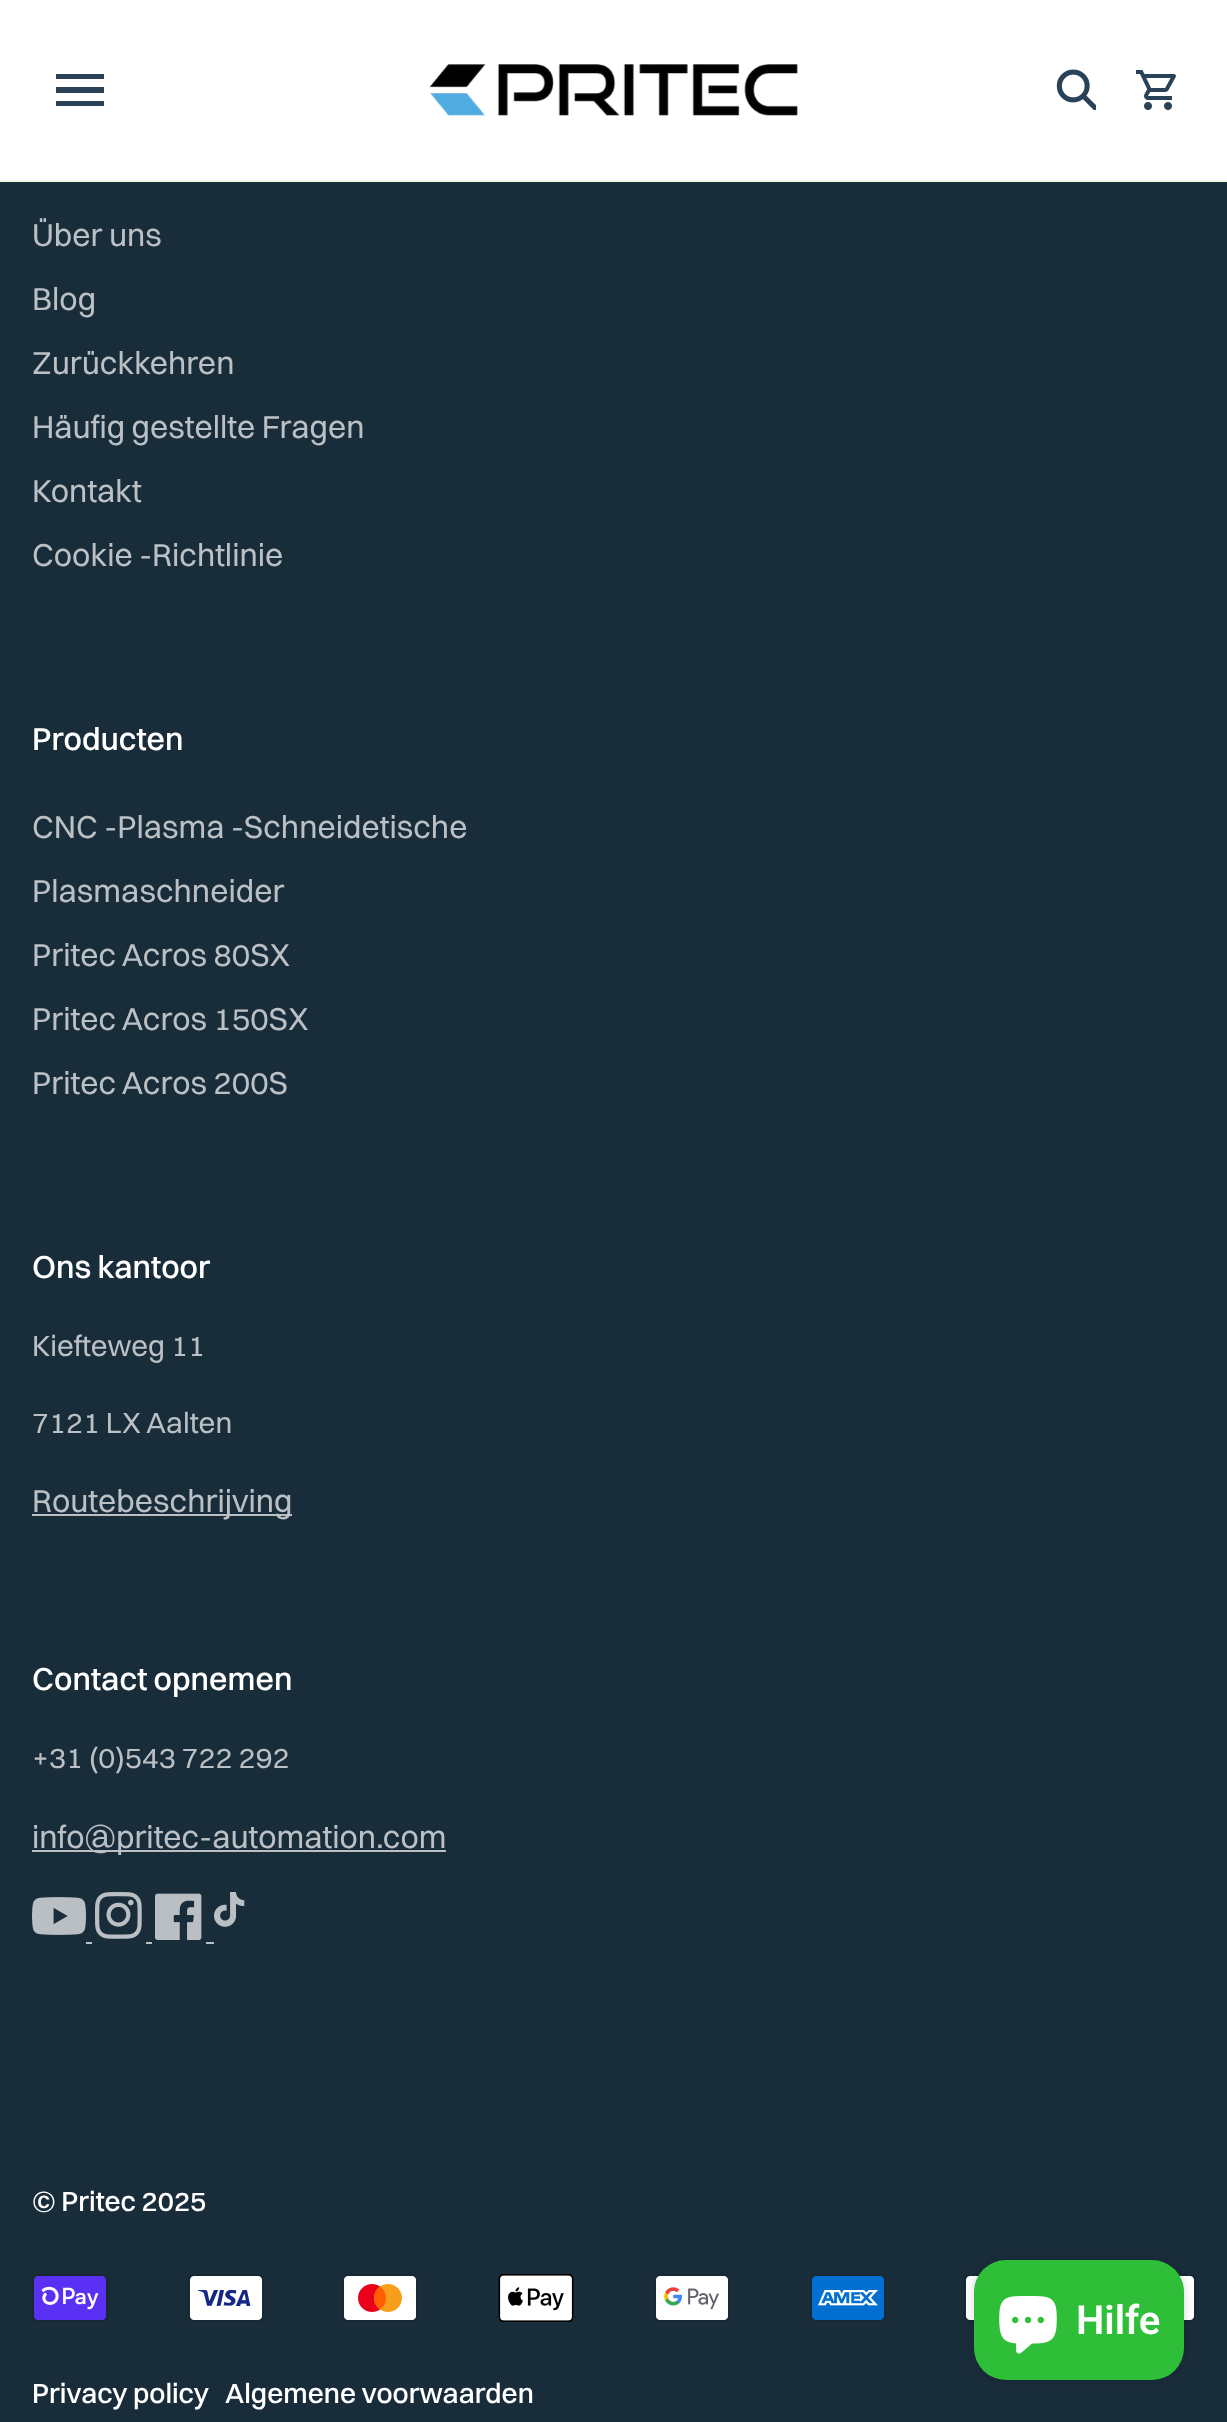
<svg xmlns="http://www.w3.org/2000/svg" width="1227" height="2422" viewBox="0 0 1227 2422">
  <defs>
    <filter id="blur1" x="-50%" y="-200%" width="200%" height="500%"><feGaussianBlur stdDeviation="5"/></filter>
  </defs>
  <rect width="100%" height="100%" fill="#192c3a"/>
  <rect x="0" y="0" width="1227" height="180" fill="#ffffff"/>
  <rect x="0" y="180" width="1227" height="2" fill="#f3f8e7"/>
  <path d="M56 106H104V101H56ZM56 93H104V87H56ZM56 74V79H104V74Z" fill="#294257"/>
  <image x="429" y="64" width="369" height="52" href="img1.png"/>
  <image x="1056" y="69" width="40" height="41" href="img2.png"/>
  <image x="1136" y="70" width="40" height="40" href="img3.png"/>
  <text x="32" y="246" font-family="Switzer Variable" font-size="32" fill="#bac0c4">Über uns</text>
  <text x="32" y="310" font-family="Switzer Variable" font-size="32" fill="#bac0c4">Blog</text>
  <text x="32" y="374" font-family="Switzer Variable" font-size="32" fill="#bac0c4">Zurückkehren</text>
  <text x="32" y="438" font-family="Switzer Variable" font-size="32" fill="#bac0c4">Häufig gestellte Fragen</text>
  <text x="32" y="502" font-family="Switzer Variable" font-size="32" fill="#bac0c4">Kontakt</text>
  <text x="32" y="566" font-family="Switzer Variable" font-size="32" fill="#bac0c4">Cookie -Richtlinie</text>
  <text x="32" y="750" font-family="Switzer Variable" font-size="32" font-weight="500" fill="#ffffff">Producten</text>
  <text x="32" y="838" font-family="Switzer Variable" font-size="32" fill="#bac0c4">CNC -Plasma -Schneidetische</text>
  <text x="32" y="902" font-family="Switzer Variable" font-size="32" fill="#bac0c4">Plasmaschneider</text>
  <text x="32" y="966" font-family="Switzer Variable" font-size="32" fill="#bac0c4">Pritec Acros 80SX</text>
  <text x="32" y="1030" font-family="Switzer Variable" font-size="32" fill="#bac0c4">Pritec Acros 150SX</text>
  <text x="32" y="1094" font-family="Switzer Variable" font-size="32" fill="#bac0c4">Pritec Acros 200S</text>
  <text x="32" y="1278" font-family="Switzer Variable" font-size="32" font-weight="500" fill="#ffffff">Ons kantoor</text>
  <text x="32" y="1356" font-family="Switzer Variable" font-size="29.5" fill="#bac0c4">Kiefteweg 11</text>
  <text x="32" y="1433" font-family="Switzer Variable" font-size="29.5" fill="#bac0c4">7121 LX Aalten</text>
  <rect x="32" y="1514" width="260" height="2" fill="#bac0c4"/>
  <text x="32" y="1512" font-family="Switzer Variable" font-size="32" fill="#bac0c4">Routebeschrijving</text>
  <text x="32" y="1690" font-family="Switzer Variable" font-size="32" font-weight="500" fill="#ffffff">Contact opnemen</text>
  <text x="32" y="1768" font-family="Switzer Variable" font-size="29.5" fill="#bac0c4">+31 (0)543 722 292</text>
  <rect x="32" y="1850" width="414" height="2" fill="#bac0c4"/>
  <text x="32" y="1848" font-family="Switzer Variable" font-size="32" fill="#bac0c4">info@pritec-automation.com</text>
  <image x="32" y="1897" width="54" height="38" href="img4.png"/>
  <image x="95" y="1892" width="47" height="47" href="img5.png"/>
  <image x="155" y="1893" width="47" height="47" href="img6.png"/>
  <image x="214" y="1892" width="31" height="35" href="img7.png"/>
  <rect x="86" y="1942" width="6" height="2" fill="#bac0c4"/>
  <rect x="146" y="1942" width="6" height="2" fill="#bac0c4"/>
  <rect x="206" y="1942" width="8" height="2" fill="#bac0c4"/>
  <text x="32" y="2211" font-family="Switzer Variable" font-size="28" font-weight="500" fill="#ffffff">© Pritec 2025</text>
  <image x="32" y="2274" width="76" height="48" href="img8.png"/>
  <image x="188" y="2274" width="76" height="48" href="img9.png"/>
  <image x="342" y="2274" width="76" height="48" href="img10.png"/>
  <image x="498" y="2274" width="76" height="48" href="img11.png"/>
  <image x="654" y="2274" width="76" height="48" href="img12.png"/>
  <image x="810" y="2274" width="76" height="48" href="img13.png"/>
  <image x="964" y="2274" width="16" height="48" href="img14.png"/>
  <image x="1178" y="2274" width="18" height="48" href="img15.png"/>
  <text x="32" y="2403" font-family="Switzer Variable" font-size="28" font-weight="500" fill="#ffffff">Privacy policy</text>
  <text x="225" y="2403" font-family="Switzer Variable" font-size="28" font-weight="500" fill="#ffffff">Algemene voorwaarden</text>
  <rect x="974" y="2260" width="210" height="120" rx="32" fill="#000000" fill-opacity="0.15" filter="url(#blur1)"/>
  <rect x="974" y="2260" width="210" height="120" rx="32" fill="#2ebe37"/>
  <image x="999" y="2296" width="58" height="58" href="img16.png"/>
  <text x="1076" y="2334" font-family="Roboto" font-size="40" font-weight="600" fill="#ffffff">Hilfe</text>
</svg>
